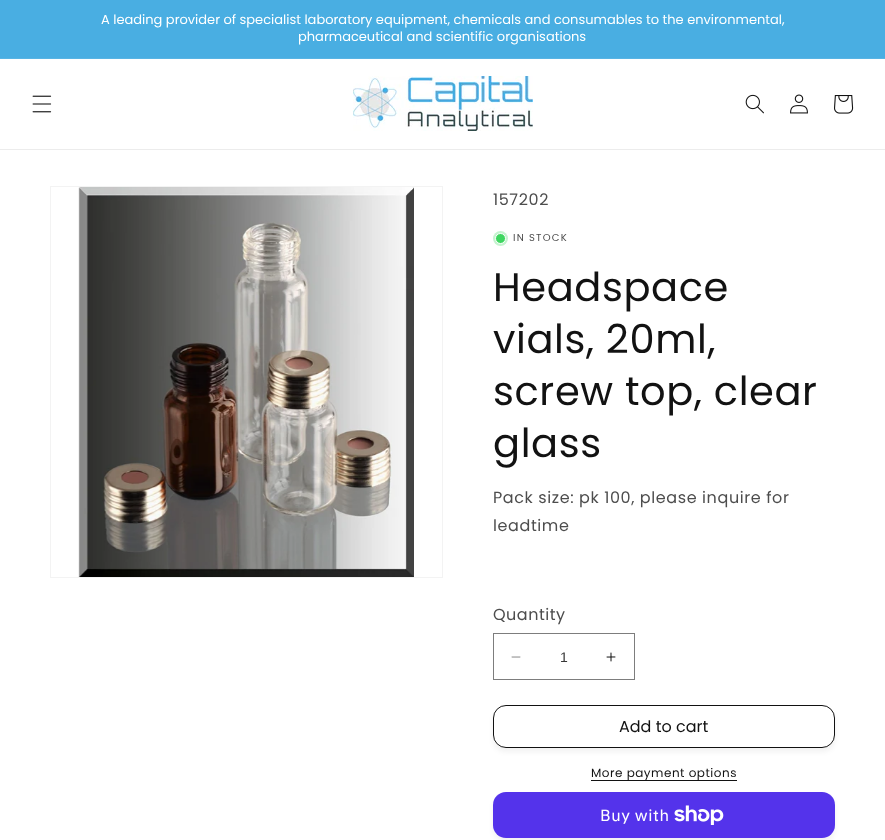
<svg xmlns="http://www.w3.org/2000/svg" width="885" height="840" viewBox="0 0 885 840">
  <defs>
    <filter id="blur1" x="-50%" y="-200%" width="200%" height="500%"><feGaussianBlur stdDeviation="2.5"/></filter>
  </defs>
  <rect width="100%" height="100%" fill="#ffffff"/>
  <rect x="0" y="0" width="885" height="58" fill="#49aee2"/>
  <rect x="0" y="58" width="885" height="1" fill="#58b4e4"/>
  <text x="101" y="24" font-family="Poppins" font-size="13" fill="#ffffff">A leading provider of specialist laboratory equipment, chemicals and consumables to the environmental,</text>
  <text x="298" y="41" font-family="Poppins" font-size="13" fill="#ffffff">pharmaceutical and scientific organisations</text>
  <rect x="0" y="149" width="885" height="1" fill="#ececec"/>
  <image x="32" y="95" width="20" height="18" href="img1.png"/>
  <image x="353" y="76" width="180" height="55" href="img2.png"/>
  <image x="745" y="94" width="19" height="20" href="img3.png"/>
  <image x="790" y="94" width="18" height="20" href="img4.png"/>
  <image x="834" y="95" width="20" height="19" href="img5.png"/>
  <rect x="50.5" y="186.5" width="392" height="391" fill="none" stroke="#f3f3f3"/>
  <image x="78" y="187" width="336" height="390" href="img6.png"/>
  <text x="493" y="205" font-family="Poppins" font-size="16" letter-spacing="0.6" fill="#4d4d4d">157202</text>
  <circle cx="500.5" cy="238.5" r="7.5" fill="#c5f3cf"/>
  <circle cx="500.5" cy="238.5" r="5" fill="#3ed660" stroke="#ffffff"/>
  <text x="513" y="241" font-family="Poppins" font-size="10" letter-spacing="1.25" fill="#4d4d4d">IN STOCK</text>
  <text x="493" y="301" font-family="Poppins" font-size="40" letter-spacing="0.6" fill="#121212">Headspace</text>
  <text x="493" y="353" font-family="Poppins" font-size="40" letter-spacing="0.6" fill="#121212">vials, 20ml,</text>
  <text x="493" y="405" font-family="Poppins" font-size="40" letter-spacing="0.6" fill="#121212">screw top, clear</text>
  <text x="493" y="457" font-family="Poppins" font-size="40" letter-spacing="0.6" fill="#121212">glass</text>
  <text x="493" y="503" font-family="Poppins" font-size="16" letter-spacing="0.6" fill="#4d4d4d">Pack size: pk 100, please inquire for</text>
  <text x="493" y="531" font-family="Poppins" font-size="16" letter-spacing="0.6" fill="#4d4d4d">leadtime</text>
  <text x="493" y="620" font-family="Poppins" font-size="16" letter-spacing="0.5" fill="#4d4d4d">Quantity</text>
  <image x="511" y="656" width="10" height="2" href="img7.png"/>
  <image x="606" y="652" width="10" height="10" href="img8.png"/>
  <rect x="493.5" y="633.5" width="141" height="46" fill="none" stroke="#7d7d7d"/>
  <text x="560" y="662" font-family="Liberation Sans" font-size="14" fill="#363636">1</text>
  <rect x="493" y="709" width="342" height="43" rx="13" fill="#121212" fill-opacity="0.05" filter="url(#blur1)"/>
  <rect x="493" y="705" width="342" height="43" rx="13" fill="#ffffff"/>
  <rect x="493.5" y="705.5" width="341" height="42" rx="12.5" fill="none" stroke="#121212"/>
  <text x="619" y="732" font-family="Poppins" font-size="16" fill="#121212">Add to cart</text>
  <rect x="591" y="780" width="146" height="1" fill="#121212"/>
  <text x="591" y="777" font-family="Poppins" font-size="12" letter-spacing="0.5" fill="#121212">More payment options</text>
  <rect x="493" y="796" width="342" height="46" rx="13" fill="#121212" fill-opacity="0.05" filter="url(#blur1)"/>
  <rect x="493" y="792" width="342" height="46" rx="13" fill="#5433eb"/>
  <text x="600" y="821" font-family="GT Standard" font-size="16" letter-spacing="0.6" fill="#ffffff">Buy with</text>
  <image x="674" y="805" width="50" height="20" href="img9.png"/>
</svg>
